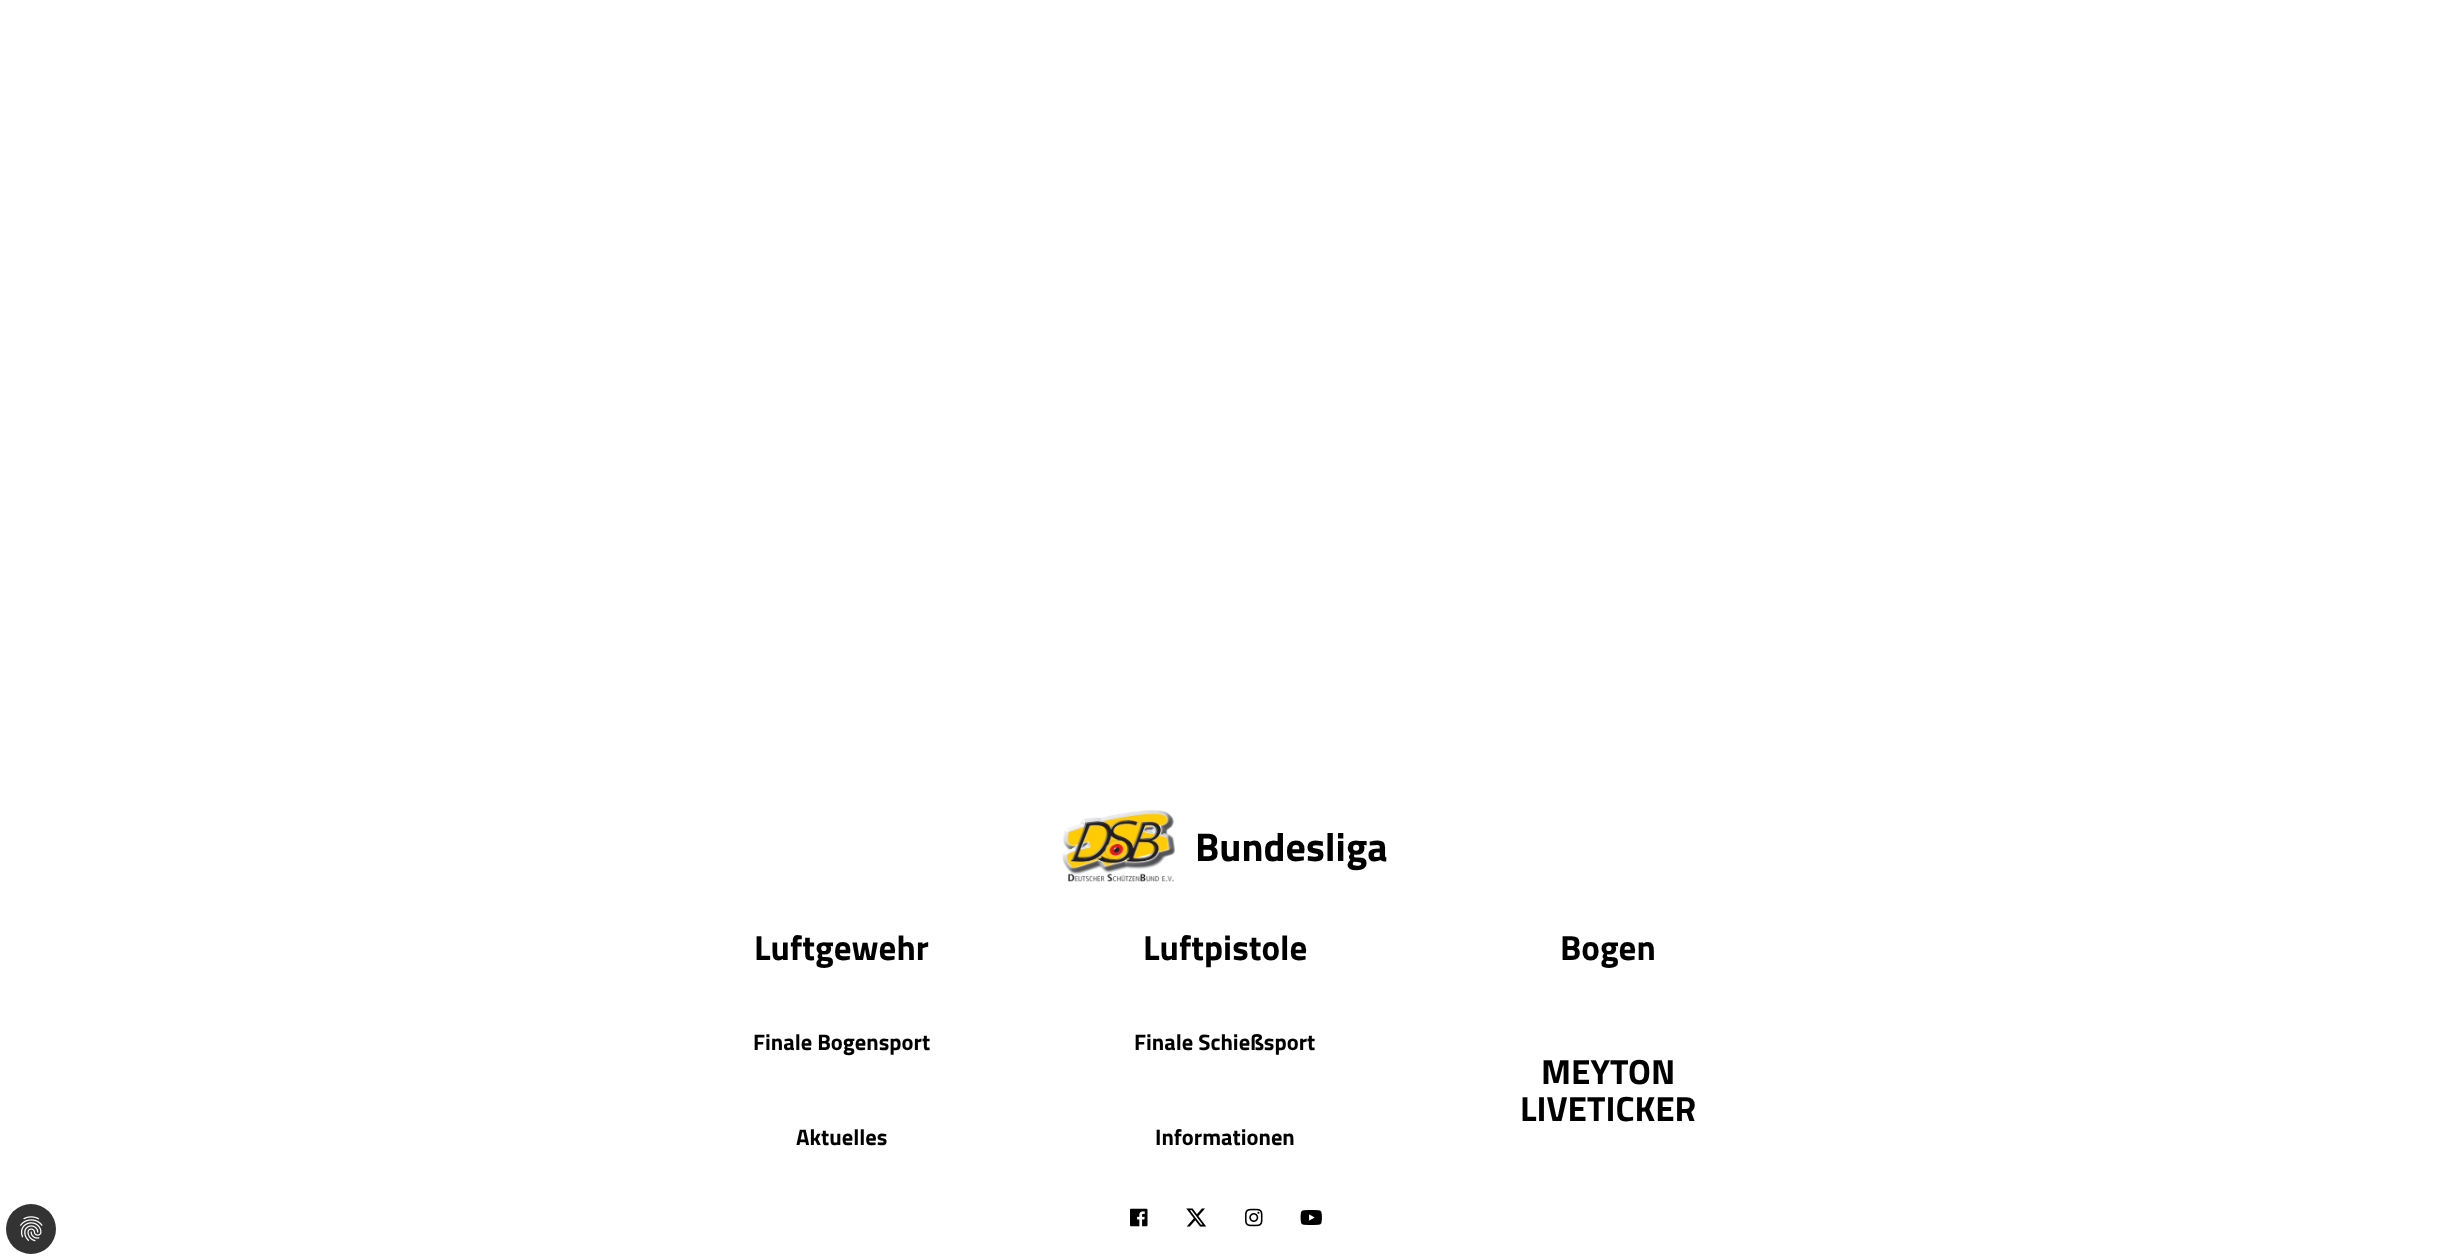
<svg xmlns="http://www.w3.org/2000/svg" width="2450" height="1259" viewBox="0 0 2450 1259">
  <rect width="100%" height="100%" fill="#ffffff"/>
  <image x="1062" y="810" width="113" height="72" href="img1.png"/>
  <text x="1195" y="861" font-family="Titillium Web" font-size="40" font-weight="bold" fill="#000000">Bundesliga</text>
  <text x="754" y="960" font-family="Titillium Web" font-size="35" font-weight="bold" fill="#000000">Luftgewehr</text>
  <text x="1143" y="960" font-family="Titillium Web" font-size="35" font-weight="bold" fill="#000000">Luftpistole</text>
  <text x="1560" y="960" font-family="Titillium Web" font-size="35" font-weight="bold" fill="#000000">Bogen</text>
  <text x="753" y="1050" font-family="Titillium Web" font-size="22.5" font-weight="bold" fill="#000000">Finale Bogensport</text>
  <text x="1134" y="1050" font-family="Titillium Web" font-size="22.5" font-weight="bold" fill="#000000">Finale Schießsport</text>
  <text x="796" y="1145" font-family="Titillium Web" font-size="22.5" font-weight="bold" fill="#000000">Aktuelles</text>
  <text x="1155" y="1145" font-family="Titillium Web" font-size="22.5" font-weight="bold" fill="#000000">Informationen</text>
  <text x="1541" y="1084" font-family="Titillium Web" font-size="35" font-weight="bold" fill="#000000">MEYTON</text>
  <text x="1520" y="1121" font-family="Titillium Web" font-size="35" font-weight="bold" fill="#000000">LIVETICKER</text>
  <image x="1130" y="1208" width="18" height="19" href="img2.png"/>
  <image x="1186" y="1208" width="21" height="19" href="img3.png"/>
  <image x="1245" y="1208" width="18" height="19" href="img4.png"/>
  <image x="1300" y="1210" width="22" height="15" href="img5.png"/>
  <circle cx="31" cy="1229" r="25" fill="#333333"/>
  <image x="20" y="1216" width="23" height="26" href="img6.png"/>
</svg>
